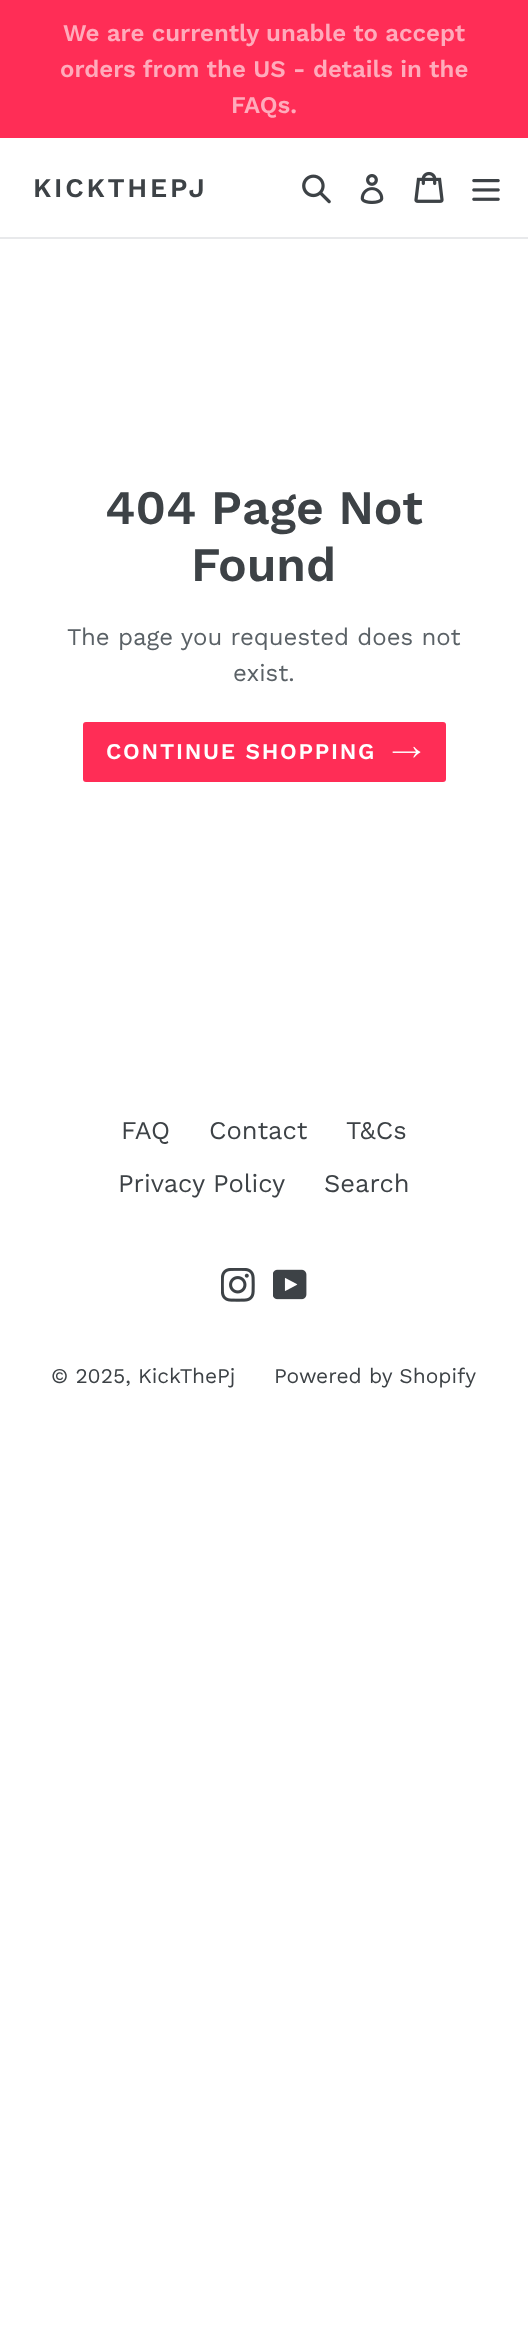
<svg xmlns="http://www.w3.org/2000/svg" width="528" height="2337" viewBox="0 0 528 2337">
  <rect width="100%" height="100%" fill="#ffffff"/>
  <rect x="0" y="0" width="528" height="138" fill="#ff2d56"/>
  <text x="63" y="41" font-family="Work Sans" font-size="24" font-weight="600" fill="#ffabbb">We are currently unable to accept</text>
  <text x="60" y="77" font-family="Work Sans" font-size="24" font-weight="600" fill="#ffabbb">orders from the US - details in the</text>
  <text x="231" y="113" font-family="Work Sans" font-size="24" font-weight="600" fill="#ffabbb">FAQs.</text>
  <rect x="0" y="237" width="528" height="2" fill="#e8e9eb"/>
  <text x="33" y="197" font-family="Work Sans" font-size="27" font-weight="600" letter-spacing="2.75" fill="#3d4246">KICKTHEPJ</text>
  <image x="302" y="174" width="29" height="30" href="img1.png"/>
  <image x="360" y="174" width="24" height="30" href="img2.png"/>
  <image x="414" y="171" width="30" height="32" href="img3.png"/>
  <image x="472" y="179" width="28" height="22" href="img4.png"/>
  <text x="105" y="524" font-family="Work Sans" font-size="48" font-weight="600" fill="#3d4246">404 Page Not</text>
  <text x="191" y="581" font-family="Work Sans" font-size="48" font-weight="600" fill="#3d4246">Found</text>
  <text x="67" y="645" font-family="Work Sans" font-size="24" fill="#5a6166">The page you requested does not</text>
  <text x="233" y="681" font-family="Work Sans" font-size="24" fill="#5a6166">exist.</text>
  <rect x="83" y="722" width="363" height="60" rx="3" fill="#ff2d56"/>
  <text x="106" y="759" font-family="Work Sans" font-size="22.5" font-weight="600" letter-spacing="1.75" fill="#ffffff">CONTINUE SHOPPING</text>
  <image x="392" y="746" width="29" height="12" href="img5.png"/>
  <text x="121" y="1139" font-family="Work Sans" font-size="25.5" fill="#3d4246">FAQ</text>
  <text x="209" y="1139" font-family="Work Sans" font-size="25.5" fill="#3d4246">Contact</text>
  <text x="346" y="1139" font-family="Work Sans" font-size="25.5" fill="#3d4246">T&amp;Cs</text>
  <text x="118" y="1192" font-family="Work Sans" font-size="25.5" fill="#3d4246">Privacy Policy</text>
  <text x="324" y="1192" font-family="Work Sans" font-size="25.5" fill="#3d4246">Search</text>
  <image x="221" y="1268" width="34" height="34" href="img6.png"/>
  <image x="273" y="1269" width="34" height="31" href="img7.png"/>
  <text x="51" y="1383" font-family="Work Sans" font-size="21" fill="#3d4246">© 2025, KickThePj</text>
  <text x="274" y="1383" font-family="Work Sans" font-size="21" fill="#3d4246">Powered by Shopify</text>
</svg>
